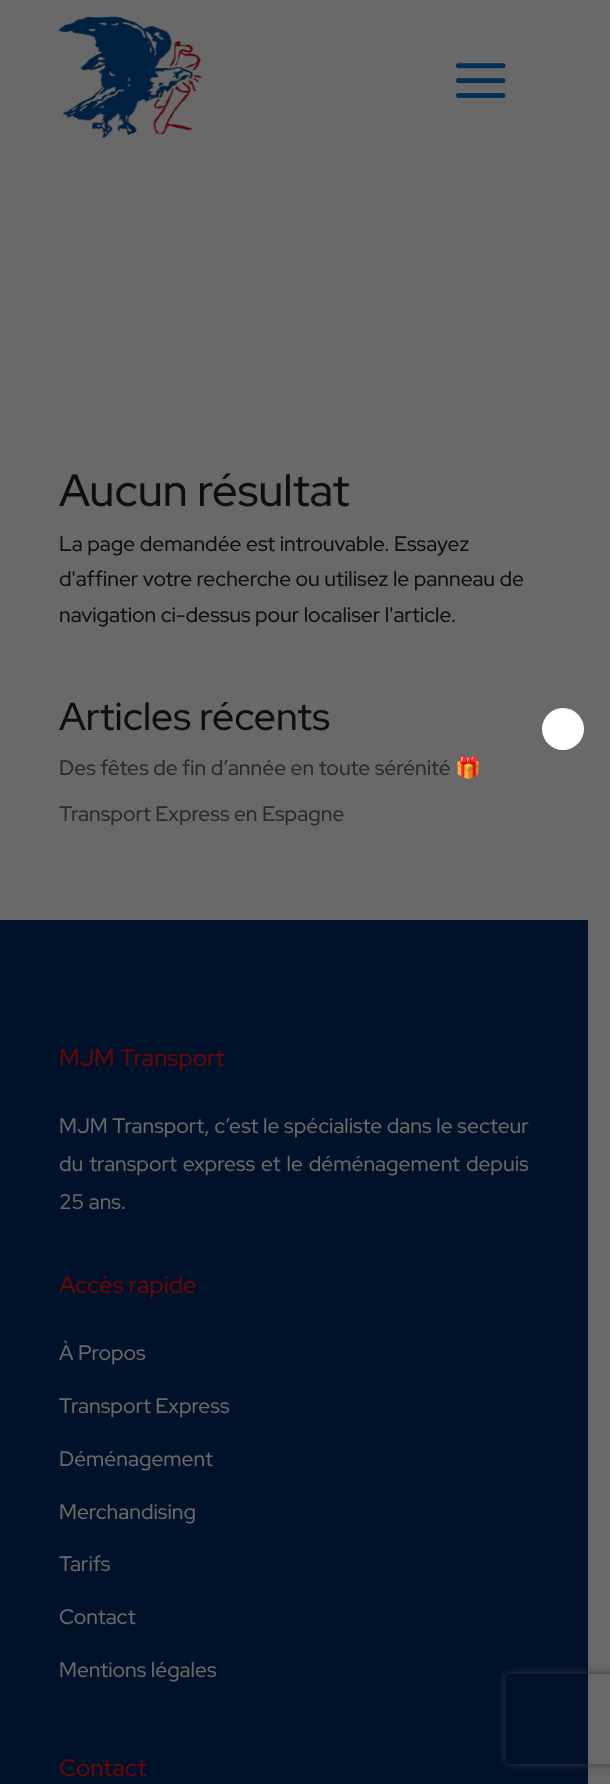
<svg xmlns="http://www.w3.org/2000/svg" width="610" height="1784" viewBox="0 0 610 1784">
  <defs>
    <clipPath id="clip1"><path d="M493 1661H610V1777H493ZM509 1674H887C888.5 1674 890 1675.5 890 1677V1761C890 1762.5 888.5 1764 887 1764H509C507.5 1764 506 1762.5 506 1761V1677C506 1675.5 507.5 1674 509 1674Z" clip-rule="evenodd"/></clipPath>
    <filter id="blur1" x="-50%" y="-200%" width="200%" height="500%"><feGaussianBlur stdDeviation="4"/></filter>
  </defs>
  <rect width="100%" height="100%" fill="#696969"/>
  <image x="58" y="16" width="144" height="122" href="img1.png"/>
  <image x="455" y="63" width="51" height="35" href="img2.png"/>
  <text x="59" y="506" font-family="Red Hat Display" font-size="45" font-weight="500" fill="#0e0e0e">Aucun résultat</text>
  <text x="59" y="551" font-family="Red Hat Display" font-size="21" font-weight="500" fill="#0e0e0e">La page demandée est introuvable. Essayez</text>
  <text x="59" y="586" font-family="Red Hat Display" font-size="21" font-weight="500" fill="#0e0e0e">d'affiner votre recherche ou utilisez le panneau de</text>
  <text x="59" y="622" font-family="Red Hat Display" font-size="21" font-weight="500" fill="#0e0e0e">navigation ci-dessus pour localiser l'article.</text>
  <text x="59" y="730" font-family="Red Hat Display" font-size="39" font-weight="500" fill="#0e0e0e">Articles récents</text>
  <text x="59" y="775" font-family="Red Hat Display" font-size="21" font-weight="500" fill="#2a2a2a">Des fêtes de fin d’année en toute sérénité</text>
  <text x="455" y="775" font-family="Noto Color Emoji" font-size="21" fill="#2a2a2a">🎁</text>
  <text x="59" y="821" font-family="Red Hat Display" font-size="21" font-weight="500" fill="#2a2a2a">Transport Express en Espagne</text>
  <rect x="0" y="920" width="588" height="864" fill="#001229"/>
  <text x="59" y="1066" font-family="Red Hat Display" font-size="24" font-weight="500" fill="#690707">MJM Transport</text>
  <text x="59" y="1133" word-spacing="0.25" font-family="Red Hat Display" font-size="21" font-weight="500" fill="#696969">MJM Transport, c’est le spécialiste dans le secteur</text>
  <text x="59" y="1171" word-spacing="1.5" font-family="Red Hat Display" font-size="21" font-weight="500" fill="#696969">du transport express et le déménagement depuis</text>
  <text x="59" y="1209" font-family="Red Hat Display" font-size="21" font-weight="500" fill="#696969">25 ans.</text>
  <text x="59" y="1293" font-family="Red Hat Display" font-size="24" font-weight="500" fill="#690707">Accès rapide</text>
  <text x="59" y="1360" font-family="Red Hat Display" font-size="21" font-weight="500" fill="#696969">À Propos</text>
  <text x="59" y="1413" font-family="Red Hat Display" font-size="21" font-weight="500" fill="#696969">Transport Express</text>
  <text x="59" y="1466" font-family="Red Hat Display" font-size="21" font-weight="500" fill="#696969">Déménagement</text>
  <text x="59" y="1519" font-family="Red Hat Display" font-size="21" font-weight="500" fill="#696969">Merchandising</text>
  <text x="59" y="1571" font-family="Red Hat Display" font-size="21" font-weight="500" fill="#696969">Tarifs</text>
  <text x="59" y="1624" font-family="Red Hat Display" font-size="21" font-weight="500" fill="#696969">Contact</text>
  <text x="59" y="1677" font-family="Red Hat Display" font-size="21" font-weight="500" fill="#696969">Mentions légales</text>
  <text x="59" y="1776" font-family="Red Hat Display" font-size="24" font-weight="500" fill="#690707">Contact</text>
  <circle cx="563" cy="729" r="21" fill="#ffffff"/>
  <g clip-path="url(#clip1)">
    <rect x="506" y="1674" width="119" height="90" rx="3" fill="#343434" filter="url(#blur1)"/>
  </g>
</svg>
